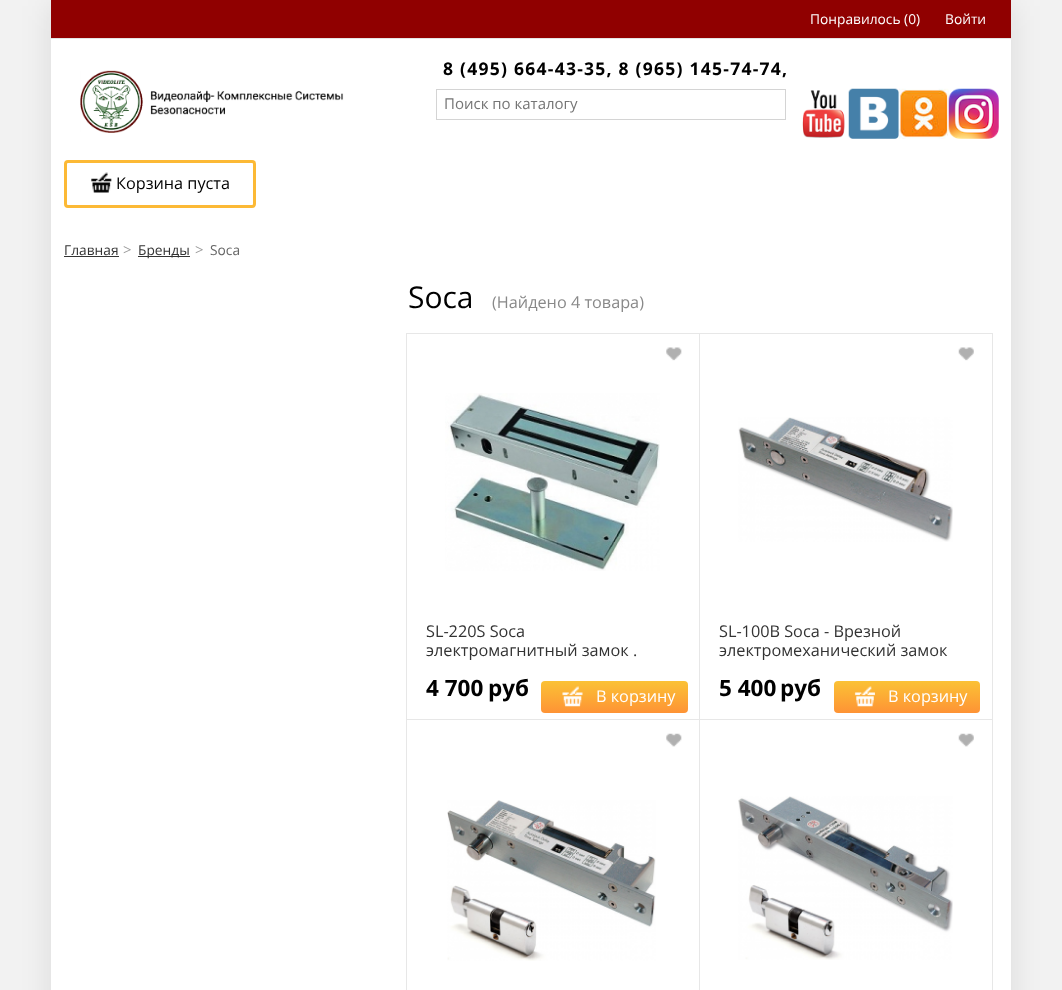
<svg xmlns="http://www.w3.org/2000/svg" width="1062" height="990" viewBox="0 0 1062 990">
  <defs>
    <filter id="blur1" x="-50%" y="-200%" width="200%" height="500%"><feGaussianBlur stdDeviation="15.5"/></filter>
    <linearGradient id="g1" gradientUnits="userSpaceOnUse" x1="614" y1="681" x2="614" y2="713"><stop offset="0" stop-color="#fbc235"/><stop offset="1" stop-color="#fe9335"/></linearGradient>
    <linearGradient id="g2" gradientUnits="userSpaceOnUse" x1="907" y1="681" x2="907" y2="713"><stop offset="0" stop-color="#fbc235"/><stop offset="1" stop-color="#fe9335"/></linearGradient>
  </defs>
  <rect width="100%" height="100%" fill="#f2f2f2"/>
  <rect x="51" y="6" width="960" height="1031" fill="#000000" fill-opacity="0.1" filter="url(#blur1)"/>
  <rect x="51" y="39" width="960" height="951" fill="#ffffff"/>
  <rect x="51" y="0" width="960" height="38" fill="#900000"/>
  <rect x="51" y="38" width="960" height="1" fill="#e4e4e4"/>
  <text x="810" y="24" font-family="Open Sans" font-size="13.75" fill="#ffffff">Понравилось (0)</text>
  <text x="945" y="24" font-family="Open Sans" font-size="13.75" fill="#ffffff">Войти</text>
  <image x="80" y="70" width="264" height="63" href="img1.png"/>
  <text x="443" y="75" font-family="Open Sans" font-size="17.5" font-weight="bold" letter-spacing="1.25" fill="#000000">8 (495) 664-43-35, 8 (965) 145-74-74,</text>
  <rect x="436.5" y="89.5" width="349" height="30" fill="none" stroke="#d4d4d4"/>
  <text x="444" y="109" font-family="Open Sans" font-size="15" fill="#757575">Поиск по каталогу</text>
  <image x="802" y="90" width="43" height="48" href="img2.png"/>
  <image x="848" y="88" width="51" height="51" href="img3.png"/>
  <image x="898" y="88" width="51" height="51" href="img4.png"/>
  <image x="948" y="88" width="51" height="51" href="img5.png"/>
  <rect x="65.5" y="161.5" width="189" height="45" rx="2.5" fill="none" stroke="#fcb935" stroke-width="3"/>
  <image x="91" y="172" width="21" height="21" href="img6.png"/>
  <text x="116" y="189" font-family="Open Sans" font-size="16.25" fill="#000000">Корзина пуста</text>
  <text x="64" y="255" font-family="Open Sans" font-size="13.75" fill="#333333">Главная</text>
  <rect x="64" y="256" width="55" height="1" fill="#333333"/>
  <text x="123" y="255" font-family="Open Sans" font-size="15" fill="#999999">&gt;</text>
  <rect x="138" y="256" width="52" height="1" fill="#333333"/>
  <text x="138" y="255" font-family="Open Sans" font-size="13.75" fill="#333333">Бренды</text>
  <text x="195" y="255" font-family="Open Sans" font-size="15" fill="#999999">&gt;</text>
  <text x="210" y="255" font-family="Open Sans" font-size="13.75" fill="#666666">Soca</text>
  <text x="408" y="308" font-family="Open Sans" font-size="30" fill="#000000">Soca</text>
  <text x="492" y="308" font-family="Open Sans" font-size="16.25" fill="#898989">(Найдено 4 товара)</text>
  <rect x="406.5" y="333.5" width="293" height="386" fill="none" stroke="#e7e7e7"/>
  <image x="666" y="347" width="16" height="14" href="img7.png"/>
  <image x="445" y="393" width="215" height="178" href="img8.png"/>
  <text x="426" y="637" font-family="Open Sans" font-size="16.25" fill="#333333">SL-220S Soca</text>
  <text x="426" y="656" font-family="Open Sans" font-size="16.25" fill="#333333">электромагнитный замок .</text>
  <text x="426" y="696" font-family="Open Sans" font-size="22.5" font-weight="bold" fill="#000000">4 700</text>
  <text x="488" y="696" font-family="Open Sans" font-size="22.5" font-weight="bold" fill="#000000">руб</text>
  <rect x="541" y="681" width="147" height="32" rx="4" fill="url(#g1)"/>
  <image x="562" y="686" width="21" height="21" href="img9.png"/>
  <text x="596" y="702" font-family="Open Sans" font-size="16.25" fill="#ffffff">В корзину</text>
  <rect x="699.5" y="333.5" width="293" height="386" fill="none" stroke="#e7e7e7"/>
  <image x="958" y="347" width="16" height="14" href="img10.png"/>
  <image x="738" y="417" width="215" height="125" href="img11.png"/>
  <text x="719" y="637" font-family="Open Sans" font-size="16.25" fill="#333333">SL-100B Soca - Врезной</text>
  <text x="719" y="656" font-family="Open Sans" font-size="16.25" fill="#333333">электромеханический замок</text>
  <text x="719" y="696" font-family="Open Sans" font-size="22.5" font-weight="bold" fill="#000000">5 400</text>
  <text x="780" y="696" font-family="Open Sans" font-size="22.5" font-weight="bold" fill="#000000">руб</text>
  <rect x="834" y="681" width="146" height="32" rx="4" fill="url(#g2)"/>
  <image x="854" y="686" width="21" height="21" href="img12.png"/>
  <text x="888" y="702" font-family="Open Sans" font-size="16.25" fill="#ffffff">В корзину</text>
  <rect x="406.5" y="719.5" width="293" height="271" fill="none" stroke="#e7e7e7"/>
  <image x="666" y="733" width="16" height="14" href="img13.png"/>
  <image x="447" y="800" width="209" height="161" href="img14.png"/>
  <rect x="699.5" y="719.5" width="293" height="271" fill="none" stroke="#e7e7e7"/>
  <image x="958" y="733" width="16" height="14" href="img15.png"/>
  <image x="738" y="796" width="215" height="164" href="img16.png"/>
</svg>
